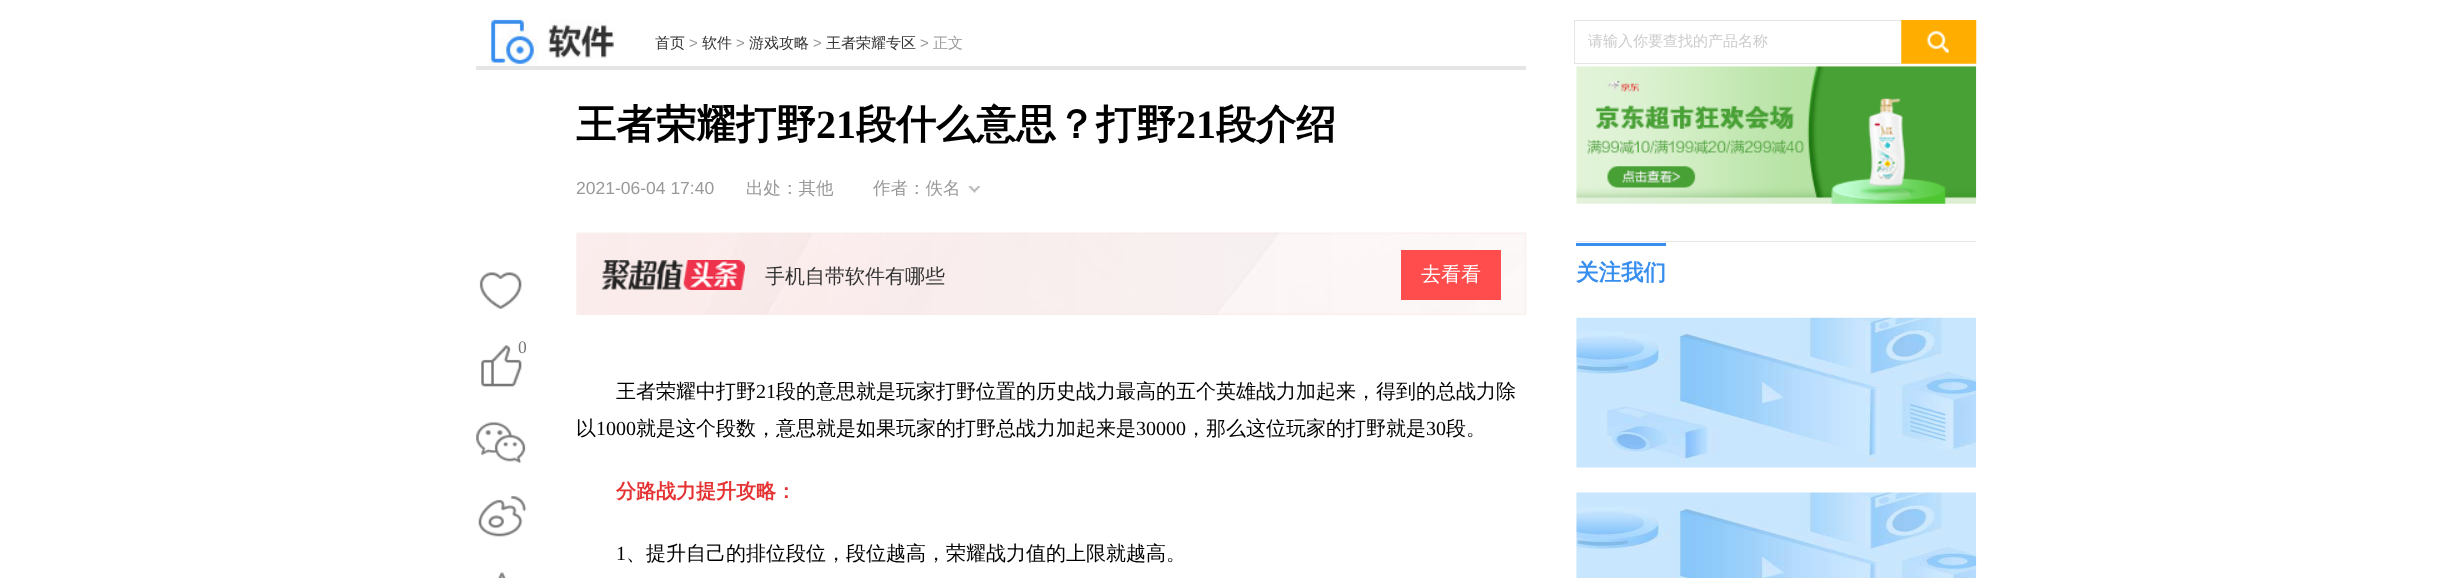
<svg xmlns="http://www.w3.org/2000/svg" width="2452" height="578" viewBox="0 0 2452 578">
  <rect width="100%" height="100%" fill="#ffffff"/>
  <image x="488" y="18" width="127" height="48" href="img1.png"/>
  <text x="655" y="48" font-family="WenQuanYi Zen Hei" font-size="15" font-weight="500" fill="#333333">首页</text>
  <text x="689" y="48" font-family="Liberation Sans" font-size="15" fill="#999999">&gt;</text>
  <text x="702" y="48" font-family="WenQuanYi Zen Hei" font-size="15" font-weight="500" fill="#333333">软件</text>
  <text x="736" y="48" font-family="Liberation Sans" font-size="15" fill="#999999">&gt;</text>
  <text x="749" y="48" font-family="WenQuanYi Zen Hei" font-size="15" font-weight="500" fill="#333333">游戏攻略</text>
  <text x="813" y="48" font-family="Liberation Sans" font-size="15" fill="#999999">&gt;</text>
  <text x="826" y="48" font-family="WenQuanYi Zen Hei" font-size="15" font-weight="500" fill="#333333">王者荣耀专区</text>
  <text x="920" y="48" font-family="Liberation Sans" font-size="15" fill="#999999">&gt;</text>
  <text x="933" y="48" font-family="WenQuanYi Zen Hei" font-size="15" font-weight="500" fill="#999999">正文</text>
  <rect x="1574" y="20" width="327" height="1" fill="#e5e5e5"/>
  <rect x="1574" y="63" width="327" height="1" fill="#e5e5e5"/>
  <rect x="1574" y="20" width="1" height="44" fill="#e5e5e5"/>
  <text x="1588" y="46" font-family="WenQuanYi Zen Hei" font-size="15" font-weight="500" fill="#cccccc">请输入你要查找的产品名称</text>
  <image x="1901" y="20" width="76" height="44" href="img2.png"/>
  <rect x="476" y="66" width="1050" height="4" fill="#e5e5e5"/>
  <text x="576" y="138" font-family="WenQuanYi Zen Hei" font-size="40" font-weight="bold" fill="#000000">王者荣耀打野</text>
  <text x="816" y="138" font-family="Liberation Serif" font-size="40" font-weight="bold" fill="#000000">21</text>
  <text x="856" y="138" font-family="WenQuanYi Zen Hei" font-size="40" font-weight="bold" fill="#000000">段什么意思？打野</text>
  <text x="1176" y="138" font-family="Liberation Serif" font-size="40" font-weight="bold" fill="#000000">21</text>
  <text x="1216" y="138" font-family="WenQuanYi Zen Hei" font-size="40" font-weight="bold" fill="#000000">段介绍</text>
  <text x="576" y="194" font-family="Liberation Sans" font-size="17.5" fill="#999999">2021-06-04 17:40</text>
  <text x="746" y="194" font-family="WenQuanYi Zen Hei" font-size="17.5" font-weight="500" fill="#999999">出处：其他</text>
  <text x="873" y="194" font-family="WenQuanYi Zen Hei" font-size="17.5" font-weight="500" fill="#999999">作者：佚名</text>
  <image x="968" y="186" width="12" height="7" href="img3.png"/>
  <image x="576" y="232" width="951" height="83" href="img4.png"/>
  <image x="601" y="260" width="144" height="30" href="img5.png"/>
  <text x="765" y="283" font-family="WenQuanYi Zen Hei" font-size="20" font-weight="500" fill="#333333">手机自带软件有哪些</text>
  <rect x="1401" y="250" width="100" height="50" fill="#ff4c4c"/>
  <text x="1421" y="281" font-family="WenQuanYi Zen Hei" font-size="20" font-weight="500" fill="#ffffff">去看看</text>
  <image x="479" y="272" width="43" height="37" href="img6.png"/>
  <image x="476" y="422" width="50" height="41" href="img7.png"/>
  <image x="478" y="496" width="49" height="41" href="img8.png"/>
  <image x="497" y="572" width="10" height="6" href="img9.png"/>
  <image x="481" y="345" width="41" height="42" href="img10.png"/>
  <text x="518" y="353" font-family="Liberation Serif" font-size="17.5" fill="#777777">0</text>
  <text x="616" y="398" font-family="WenQuanYi Zen Hei" font-size="20" font-weight="500" fill="#000000">王者荣耀中打野</text>
  <text x="756" y="398" font-family="Liberation Serif" font-size="20" fill="#000000">21</text>
  <text x="776" y="398" font-family="WenQuanYi Zen Hei" font-size="20" font-weight="500" fill="#000000">段的意思就是玩家打野位置的历史战力最高的五个英雄战力加起来，得到的总战力除</text>
  <text x="576" y="435" font-family="WenQuanYi Zen Hei" font-size="20" font-weight="500" fill="#000000">以</text>
  <text x="596" y="435" font-family="Liberation Serif" font-size="20" fill="#000000">1000</text>
  <text x="636" y="435" font-family="WenQuanYi Zen Hei" font-size="20" font-weight="500" fill="#000000">就是这个段数，意思就是如果玩家的打野总战力加起来是</text>
  <text x="1136" y="435" font-family="Liberation Serif" font-size="20" fill="#000000">30000</text>
  <text x="1186" y="435" font-family="WenQuanYi Zen Hei" font-size="20" font-weight="500" fill="#000000">，那么这位玩家的打野就是</text>
  <text x="1426" y="435" font-family="Liberation Serif" font-size="20" fill="#000000">30</text>
  <text x="1446" y="435" font-family="WenQuanYi Zen Hei" font-size="20" font-weight="500" fill="#000000">段。</text>
  <text x="616" y="498" font-family="WenQuanYi Zen Hei" font-size="20" font-weight="bold" fill="#e53333">分路战力提升攻略：</text>
  <text x="616" y="560" font-family="Liberation Serif" font-size="20" fill="#000000">1</text>
  <text x="626" y="560" font-family="WenQuanYi Zen Hei" font-size="20" font-weight="500" fill="#000000">、提升自己的排位段位，段位越高，荣耀战力值的上限就越高。</text>
  <image x="1576" y="66" width="401" height="138" href="img11.png"/>
  <rect x="1576" y="241" width="400" height="1" fill="#e5e5e5"/>
  <rect x="1576" y="243" width="90" height="3" fill="#388eee"/>
  <text x="1576" y="280" font-family="WenQuanYi Zen Hei" font-size="22.5" font-weight="bold" fill="#388eee">关注我们</text>
  <image x="1576" y="317" width="401" height="151" href="img12.png"/>
  <image x="1576" y="492" width="401" height="86" href="img13.png"/>
</svg>
